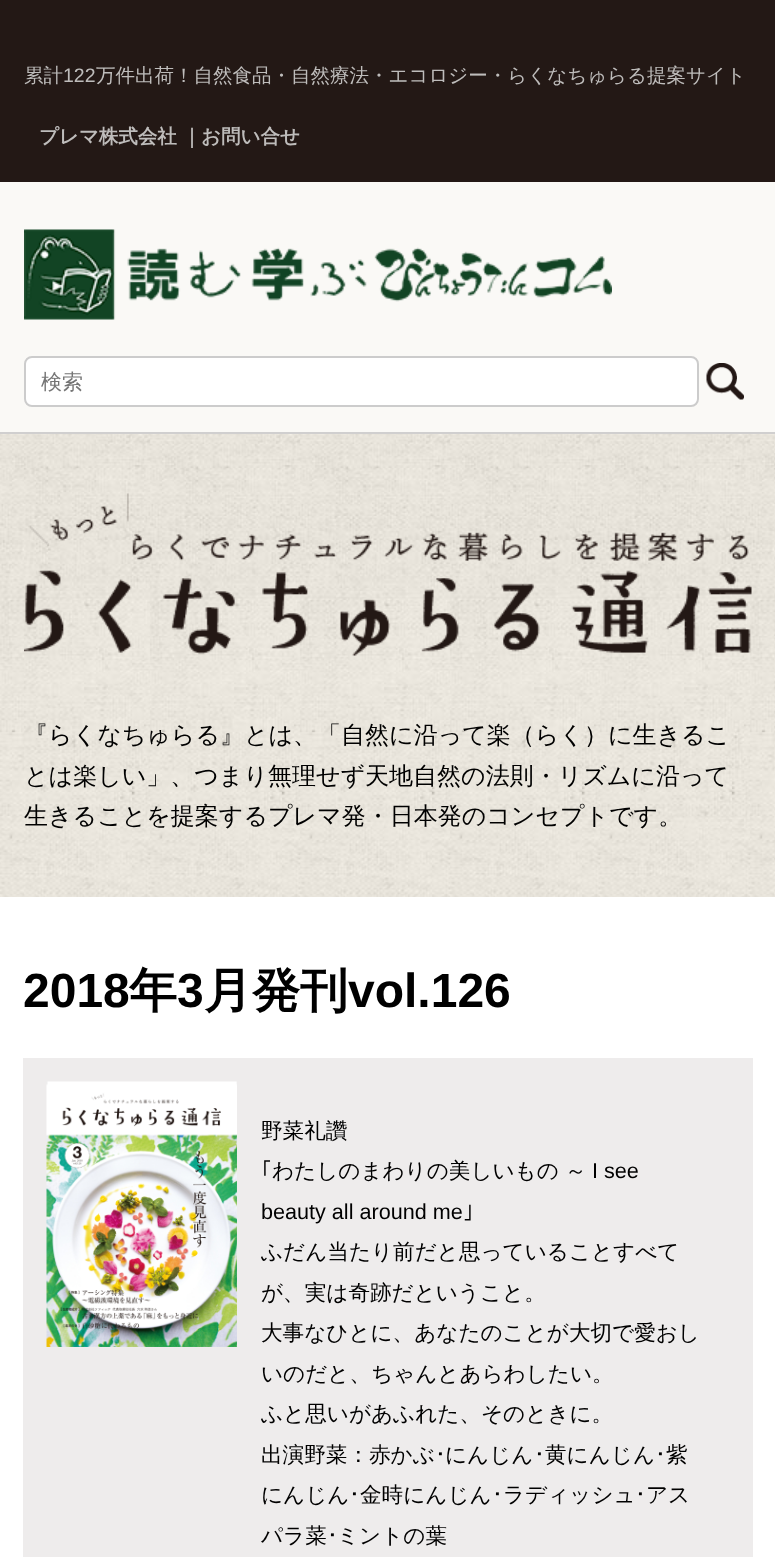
<svg xmlns="http://www.w3.org/2000/svg" width="775" height="1557" viewBox="0 0 775 1557">
  <rect width="100%" height="100%" fill="#ffffff"/>
  <image x="0" y="434" width="775" height="463" href="img1.png"/>
  <rect x="0" y="0" width="775" height="182" fill="#231815"/>
  <text x="24" y="82" font-family="WenQuanYi Zen Hei" font-size="19.5" font-weight="500" fill="#bebcbb">累計</text>
  <text x="63" y="82" font-family="Liberation Sans" font-size="19.5" fill="#bebcbb">122</text>
  <text x="96" y="82" font-family="WenQuanYi Zen Hei" font-size="19.5" font-weight="500" fill="#bebcbb">万件出荷！自然食品・自然療法・エコロジー・らくなちゅらる提案サイト</text>
  <text x="39" y="143" font-family="WenQuanYi Zen Hei" font-size="19.5" font-weight="bold" fill="#bebcbb">プレマ株式会社</text>
  <text x="182" y="143" font-family="WenQuanYi Zen Hei" font-size="19.5" font-weight="bold" fill="#bebcbb">｜お問い合せ</text>
  <rect x="0" y="182" width="775" height="250" fill="#faf9f6"/>
  <rect x="0" y="432" width="775" height="2" fill="#d0cfcf"/>
  <image x="24" y="229" width="588" height="91" href="img2.png"/>
  <rect x="25" y="357" width="673" height="49" rx="7" fill="#ffffff" stroke="#cccccc" stroke-width="2"/>
  <text x="41" y="389" font-family="WenQuanYi Zen Hei" font-size="21" font-weight="500" fill="#757575">検索</text>
  <image x="706" y="363" width="38" height="37" href="img3.png"/>
  <image x="24" y="493" width="728" height="163" href="img4.png"/>
  <text x="24" y="743" font-family="WenQuanYi Zen Hei" font-size="24" font-weight="500" fill="#000000">『らくなちゅらる』とは、「自然に沿って楽（らく）に生きるこ</text>
  <text x="24" y="784" font-family="WenQuanYi Zen Hei" font-size="24" font-weight="500" fill="#000000">とは楽しい」、つまり無理せず天地自然の法則・リズムに沿って</text>
  <text x="24" y="824" font-family="WenQuanYi Zen Hei" font-size="24" font-weight="500" fill="#000000">生きることを提案するプレマ発・日本発のコンセプトです。</text>
  <text x="23" y="1007" font-family="Liberation Sans" font-size="48" font-weight="bold" fill="#000000">2018</text>
  <text x="129" y="1007" font-family="WenQuanYi Zen Hei" font-size="48" font-weight="bold" fill="#000000">年</text>
  <text x="177" y="1007" font-family="Liberation Sans" font-size="48" font-weight="bold" fill="#000000">3</text>
  <text x="204" y="1007" font-family="WenQuanYi Zen Hei" font-size="48" font-weight="bold" fill="#000000">月発刊</text>
  <text x="348" y="1007" font-family="Liberation Sans" font-size="48" font-weight="bold" fill="#000000">vol.126</text>
  <rect x="23" y="1058" width="730" height="499" fill="#eeecec"/>
  <image x="46" y="1081" width="191" height="266" href="img5.png"/>
  <text x="261" y="1138" font-family="WenQuanYi Zen Hei" font-size="21.6" font-weight="500" fill="#000000">野菜礼讚</text>
  <text x="261" y="1178" font-family="IPAPGothic" font-size="21.6" fill="#000000">｢</text>
  <text x="272" y="1178" font-family="WenQuanYi Zen Hei" font-size="21.6" font-weight="500" fill="#000000">わたしのまわりの美しいもの</text>
  <text x="565" y="1178" font-family="WenQuanYi Zen Hei" font-size="21.6" font-weight="500" fill="#000000">～</text>
  <text x="592" y="1178" font-family="Liberation Sans" font-size="21.6" fill="#000000">I see</text>
  <text x="261" y="1219" font-family="Liberation Sans" font-size="21.6" fill="#000000">beauty all around me</text>
  <text x="463" y="1219" font-family="IPAPGothic" font-size="21.6" fill="#000000">｣</text>
  <text x="261" y="1259" font-family="WenQuanYi Zen Hei" font-size="21.6" font-weight="500" fill="#000000">ふだん当たり前だと思っていることすべて</text>
  <text x="261" y="1300" font-family="WenQuanYi Zen Hei" font-size="21.6" font-weight="500" fill="#000000">が、実は奇跡だということ。</text>
  <text x="261" y="1340" font-family="WenQuanYi Zen Hei" font-size="21.6" font-weight="500" fill="#000000">大事なひとに、あなたのことが大切で愛おし</text>
  <text x="261" y="1381" font-family="WenQuanYi Zen Hei" font-size="21.6" font-weight="500" fill="#000000">いのだと、ちゃんとあらわしたい。</text>
  <text x="261" y="1421" font-family="WenQuanYi Zen Hei" font-size="21.6" font-weight="500" fill="#000000">ふと思いがあふれた、そのときに。</text>
  <text x="261" y="1462" font-family="WenQuanYi Zen Hei" font-size="21.6" font-weight="500" fill="#000000">出演野菜：赤かぶ</text>
  <text x="435" y="1462" font-family="IPAPGothic" font-size="21.6" fill="#000000">･</text>
  <text x="445" y="1462" font-family="WenQuanYi Zen Hei" font-size="21.6" font-weight="500" fill="#000000">にんじん</text>
  <text x="534" y="1462" font-family="IPAPGothic" font-size="21.6" fill="#000000">･</text>
  <text x="545" y="1462" font-family="WenQuanYi Zen Hei" font-size="21.6" font-weight="500" fill="#000000">黄にんじん</text>
  <text x="655" y="1462" font-family="IPAPGothic" font-size="21.6" fill="#000000">･</text>
  <text x="666" y="1462" font-family="WenQuanYi Zen Hei" font-size="21.6" font-weight="500" fill="#000000">紫</text>
  <text x="261" y="1502" font-family="WenQuanYi Zen Hei" font-size="21.6" font-weight="500" fill="#000000">にんじん</text>
  <text x="349" y="1502" font-family="IPAPGothic" font-size="21.6" fill="#000000">･</text>
  <text x="360" y="1502" font-family="WenQuanYi Zen Hei" font-size="21.6" font-weight="500" fill="#000000">金時にんじん</text>
  <text x="492" y="1502" font-family="IPAPGothic" font-size="21.6" fill="#000000">･</text>
  <text x="503" y="1502" font-family="WenQuanYi Zen Hei" font-size="21.6" font-weight="500" fill="#000000">ラディッシュ</text>
  <text x="635" y="1502" font-family="IPAPGothic" font-size="21.6" fill="#000000">･</text>
  <text x="646" y="1502" font-family="WenQuanYi Zen Hei" font-size="21.6" font-weight="500" fill="#000000">アス</text>
  <text x="261" y="1543" font-family="WenQuanYi Zen Hei" font-size="21.6" font-weight="500" fill="#000000">パラ菜</text>
  <text x="327" y="1543" font-family="IPAPGothic" font-size="21.6" fill="#000000">･</text>
  <text x="337" y="1543" font-family="WenQuanYi Zen Hei" font-size="21.6" font-weight="500" fill="#000000">ミントの葉</text>
</svg>
